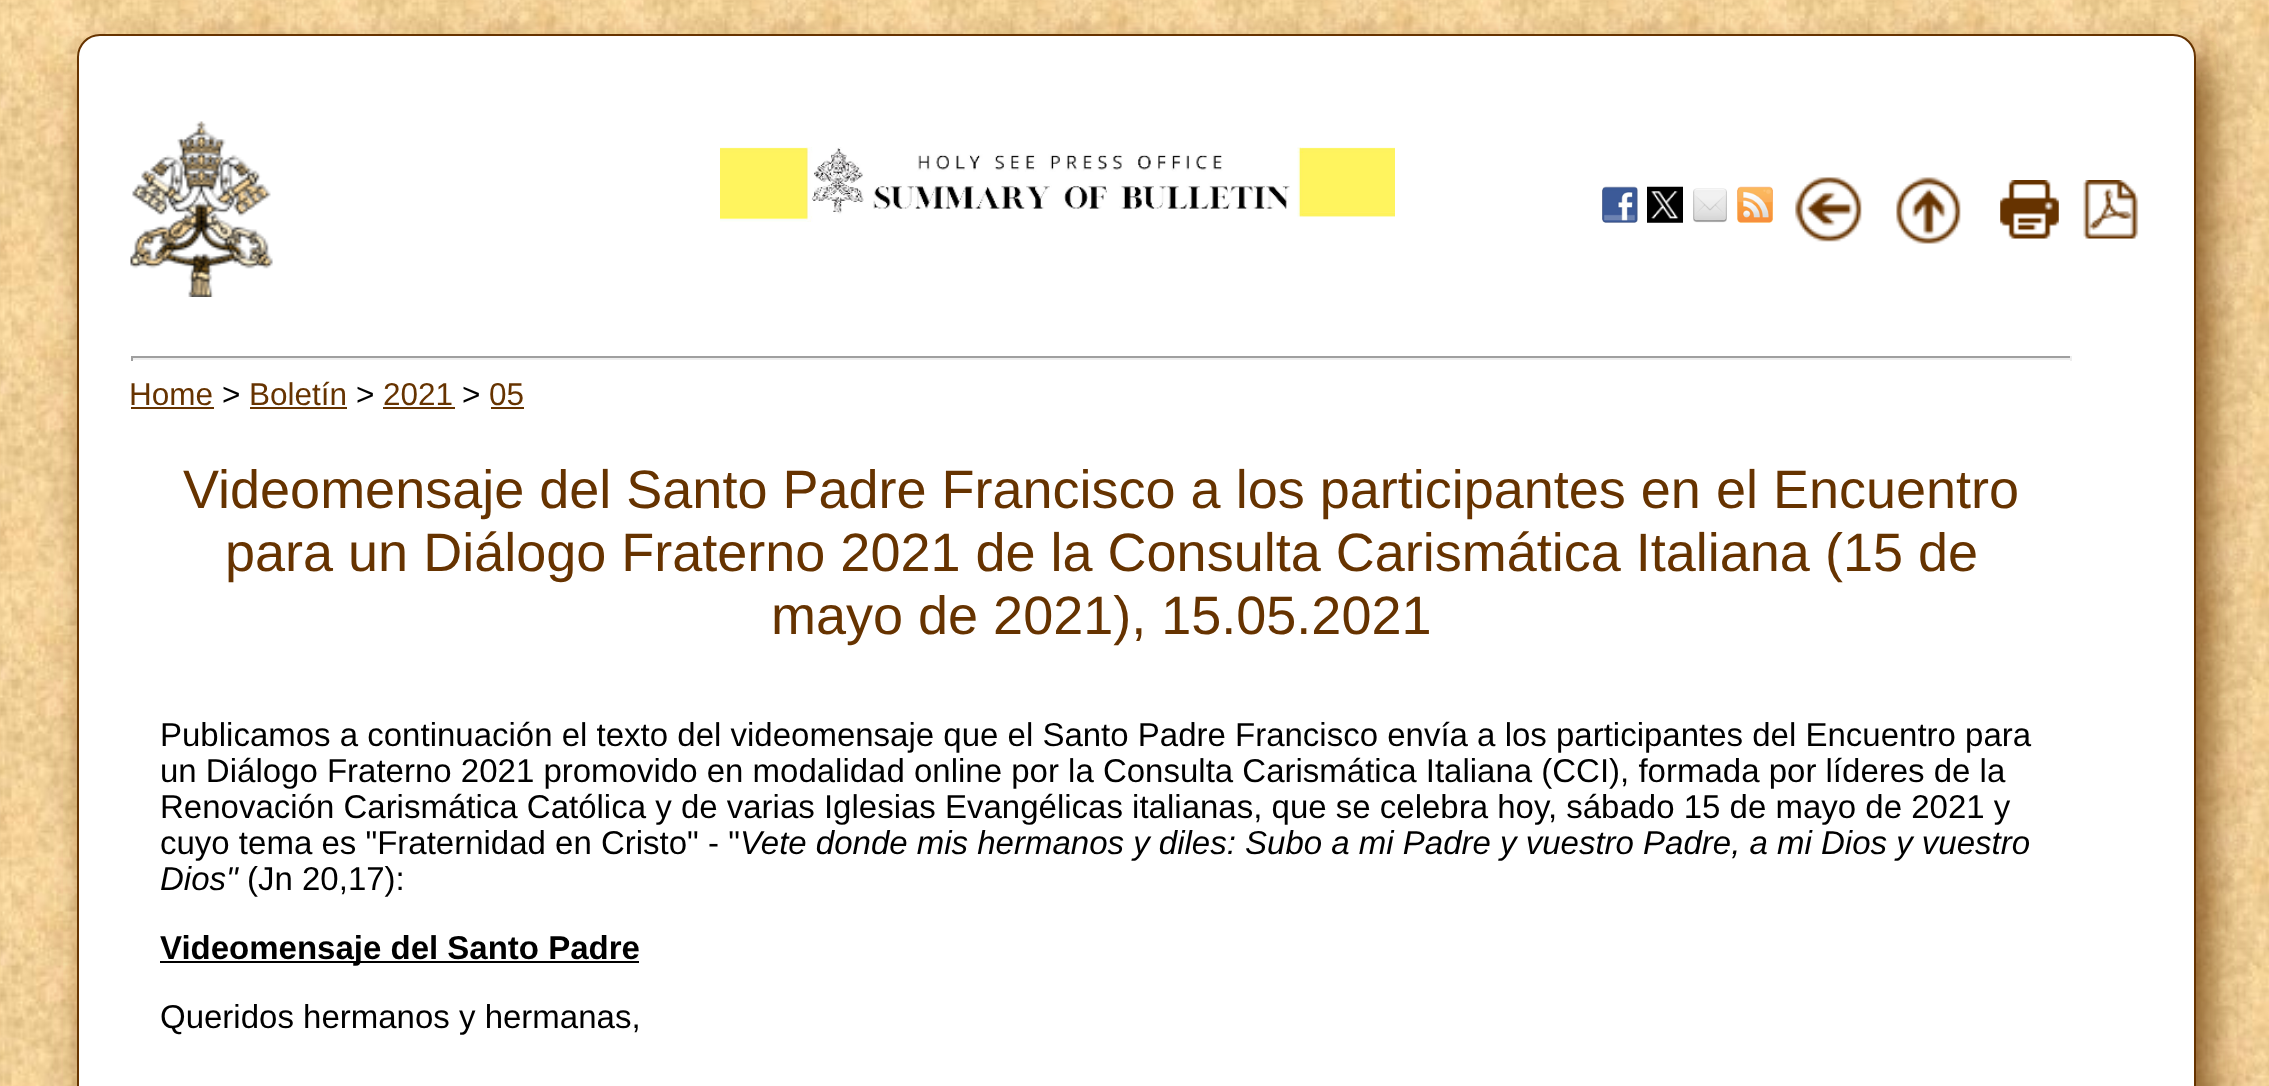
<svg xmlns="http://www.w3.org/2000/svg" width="2269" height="1086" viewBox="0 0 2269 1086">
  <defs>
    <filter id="blur1" x="-50%" y="-200%" width="200%" height="500%"><feGaussianBlur stdDeviation="19"/></filter>
  </defs>
  <rect width="100%" height="100%" fill="#ffffff"/>
  <image x="0" y="0" width="2269" height="1086" href="img1.png"/>
  <rect x="90" y="56" width="2120" height="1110" rx="23" fill="#663300" fill-opacity="0.8" filter="url(#blur1)"/>
  <rect x="78" y="35" width="2117" height="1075" rx="22" fill="#ffffff" stroke="#663300" stroke-width="2"/>
  <image x="130" y="121" width="143" height="176" href="img2.png"/>
  <image x="720" y="147" width="675" height="75" href="img3.png"/>
  <image x="1602" y="186" width="36" height="37" href="img4.png"/>
  <image x="1647" y="186" width="36" height="37" href="img5.png"/>
  <image x="1693" y="188" width="34" height="35" href="img6.png"/>
  <image x="1737" y="186" width="36" height="37" href="img7.png"/>
  <image x="1795" y="177" width="67" height="65" href="img8.png"/>
  <image x="1896" y="177" width="65" height="67" href="img9.png"/>
  <image x="2000" y="180" width="59" height="59" href="img10.png"/>
  <image x="2083" y="180" width="56" height="59" href="img11.png"/>
  <rect x="131" y="356" width="1941" height="2" fill="#9f9f9f"/>
  <rect x="2070" y="356" width="2" height="5" fill="#eeeeee"/>
  <rect x="131" y="358" width="1941" height="2" fill="#eeeeee"/>
  <rect x="131" y="356" width="2" height="5" fill="#9f9f9f"/>
  <text x="129" y="405" font-family="Liberation Sans" font-size="31.5" fill="#663300">Home</text>
  <rect x="131" y="407" width="83" height="2" fill="#663300"/>
  <text x="222" y="405" font-family="Liberation Sans" font-size="31.5" fill="#000000">&gt;</text>
  <text x="249" y="405" font-family="Liberation Sans" font-size="31.5" fill="#663300">Boletín</text>
  <rect x="250" y="407" width="97" height="2" fill="#663300"/>
  <text x="356" y="405" font-family="Liberation Sans" font-size="31.5" fill="#000000">&gt;</text>
  <text x="383" y="405" font-family="Liberation Sans" font-size="31.5" fill="#663300">2021</text>
  <rect x="383" y="407" width="72" height="2" fill="#663300"/>
  <text x="462" y="405" font-family="Liberation Sans" font-size="31.5" fill="#000000">&gt;</text>
  <text x="489" y="405" font-family="Liberation Sans" font-size="31.5" fill="#663300">05</text>
  <rect x="491" y="407" width="33" height="2" fill="#663300"/>
  <text x="183" y="508" font-family="Liberation Sans" font-size="54" fill="#663300">Videomensaje del Santo Padre Francisco a los participantes en el Encuentro</text>
  <text x="225" y="571" font-family="Liberation Sans" font-size="54" fill="#663300">para un Diálogo Fraterno 2021 de la Consulta Carismática Italiana (15 de</text>
  <text x="771" y="634" font-family="Liberation Sans" font-size="54" fill="#663300">mayo de 2021), 15.05.2021</text>
  <text x="160" y="746" font-family="Liberation Sans" font-size="33" fill="#000000">Publicamos a continuación el texto del videomensaje que el Santo Padre Francisco envía a los participantes del Encuentro para</text>
  <text x="160" y="782" font-family="Liberation Sans" font-size="33" fill="#000000">un Diálogo Fraterno 2021 promovido en modalidad online por la Consulta Carismática Italiana (CCI), formada por líderes de la</text>
  <text x="160" y="818" font-family="Liberation Sans" font-size="33" fill="#000000">Renovación Carismática Católica y de varias Iglesias Evangélicas italianas, que se celebra hoy, sábado 15 de mayo de 2021 y</text>
  <text x="160" y="854" font-family="Liberation Sans" font-size="33" fill="#000000">cuyo tema es "Fraternidad en Cristo" - "</text>
  <text x="740" y="854" font-family="Liberation Sans" font-size="33" font-style="italic" fill="#000000">Vete donde mis hermanos y diles: Subo a mi Padre y vuestro Padre, a mi Dios y vuestro</text>
  <text x="160" y="890" font-family="Liberation Sans" font-size="33" font-style="italic" fill="#000000">Dios"</text>
  <text x="247" y="890" font-family="Liberation Sans" font-size="33" fill="#000000">(Jn 20,17):</text>
  <rect x="160" y="961" width="479" height="2" fill="#000000"/>
  <text x="160" y="959" font-family="Liberation Sans" font-size="33" font-weight="bold" fill="#000000">Videomensaje del Santo Padre</text>
  <text x="160" y="1028" font-family="Liberation Sans" font-size="33" fill="#000000">Queridos hermanos y hermanas,</text>
</svg>
